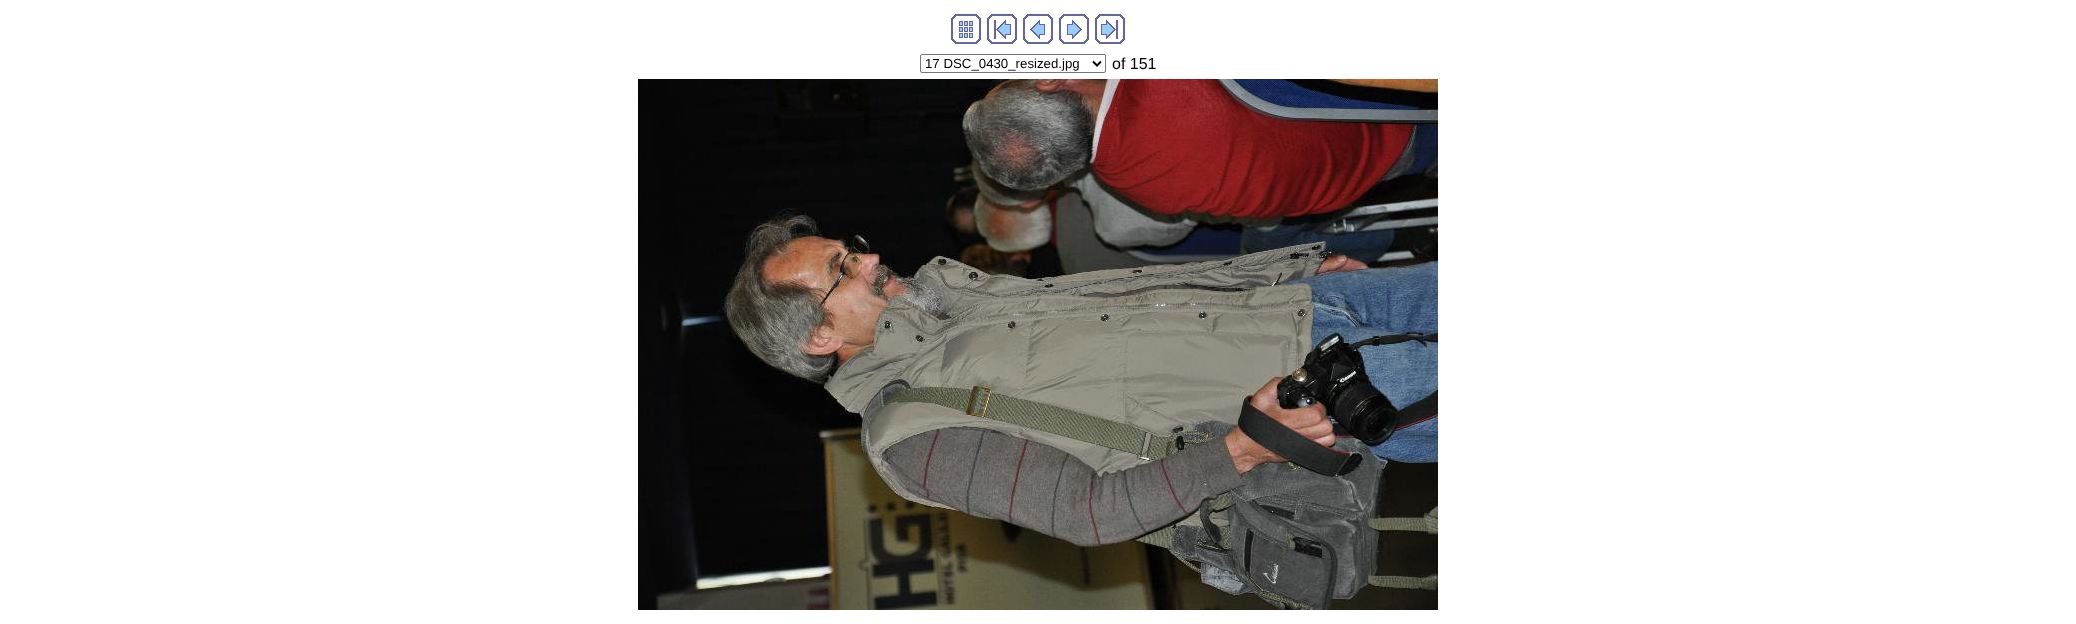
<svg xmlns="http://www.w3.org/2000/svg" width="2076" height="624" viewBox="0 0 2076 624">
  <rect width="100%" height="100%" fill="#ffffff"/>
  <image x="951" y="14" width="30" height="30" href="img1.png"/>
  <image x="987" y="14" width="30" height="30" href="img2.png"/>
  <image x="1023" y="14" width="30" height="30" href="img3.png"/>
  <image x="1059" y="14" width="30" height="30" href="img4.png"/>
  <image x="1095" y="14" width="30" height="30" href="img5.png"/>
  <rect x="920.5" y="54.5" width="185" height="18" rx="1.5" fill="none" stroke="#767676"/>
  <path d="M1093 61.5L1097 65.5L1101 61.5" fill="none" stroke="#000000" stroke-width="2"/>
  <text x="925" y="68" font-family="Liberation Sans" font-size="13.25" fill="#000000">17 DSC_0430_resized.jpg</text>
  <text x="1112" y="69" font-family="Liberation Sans" font-size="16" fill="#000000">of 151</text>
  <image x="638" y="79" width="800" height="531" href="img6.png"/>
</svg>
